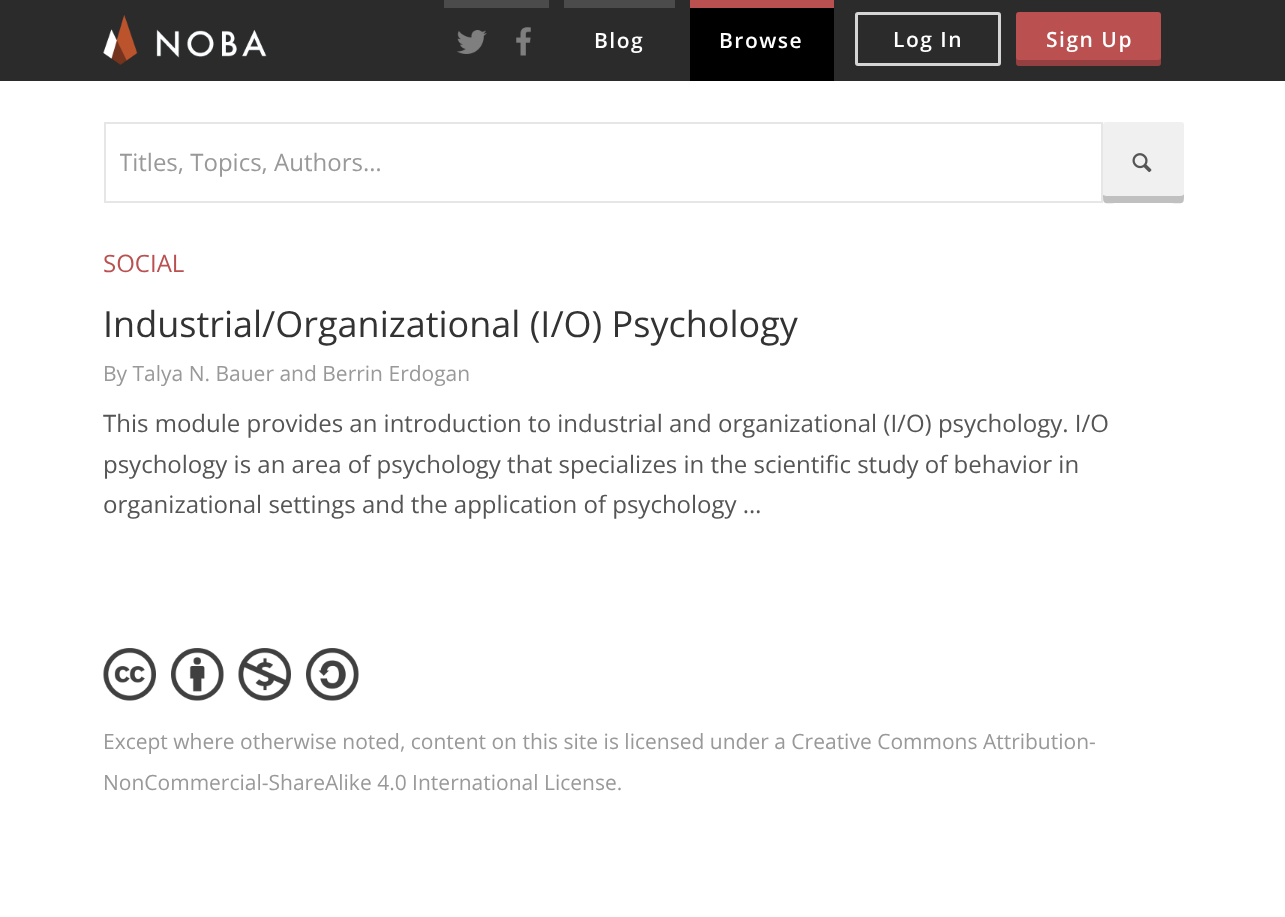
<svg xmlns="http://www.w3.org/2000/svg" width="1285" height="917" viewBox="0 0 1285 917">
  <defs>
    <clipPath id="clip1"><rect x="120" y="146" width="966" height="33"/></clipPath>
  </defs>
  <rect width="100%" height="100%" fill="#ffffff"/>
  <rect x="0" y="0" width="1285" height="81" fill="#2b2b2b"/>
  <image x="103" y="15" width="164" height="50" href="img1.png"/>
  <rect x="444" y="0" width="105" height="8" fill="#4b4b4b"/>
  <image x="457" y="30" width="30" height="24" href="img2.png"/>
  <image x="516" y="27" width="15" height="29" href="img3.png"/>
  <rect x="564" y="0" width="111" height="8" fill="#4b4b4b"/>
  <text x="594" y="48" font-family="Open Sans" font-size="21" font-weight="600" letter-spacing="1.5" fill="#ffffff">Blog</text>
  <rect x="690" y="8" width="144" height="73" fill="#000000"/>
  <rect x="690" y="0" width="144" height="8" fill="#ba5050"/>
  <text x="719" y="48" font-family="Open Sans" font-size="21" font-weight="600" letter-spacing="1.5" fill="#ffffff">Browse</text>
  <rect x="856.5" y="13.5" width="143" height="51" rx="1.5" fill="none" stroke="#d5d5d5" stroke-width="3"/>
  <text x="893" y="47" font-family="Open Sans" font-size="21" font-weight="600" letter-spacing="1.5" fill="#ffffff">Log In</text>
  <rect x="1016" y="12" width="145" height="54" rx="3" fill="#ba5050"/>
  <path d="M1016 57V63C1016 65 1017 66 1019 66H1158C1160 66 1161 65 1161 63V57C1161 59 1160 60 1158 60H1018C1017 60 1016 59 1016 57Z" fill="#000000" fill-opacity="0.2"/>
  <text x="1046" y="47" font-family="Open Sans" font-size="21" font-weight="600" letter-spacing="1.5" fill="#ffffff">Sign Up</text>
  <rect x="105" y="123" width="997" height="79" fill="none" stroke="#e6e6e6" stroke-width="2"/>
  <g clip-path="url(#clip1)">
    <text x="119" y="171" font-family="Open Sans" font-size="24" fill="#999999">Titles, Topics, Authors…</text>
  </g>
  <rect x="1103" y="122" width="81" height="81" rx="3" fill="#f0f0f0"/>
  <path d="M1103 195C1103 206 1105 203 1118 203H1168C1183 203 1184 206 1184 194C1184 195 1182 196 1180 196H1106Z" fill="#c0c0c0"/>
  <image x="1132" y="153" width="20" height="20" href="img4.png"/>
  <text x="103" y="272" font-family="Open Sans" font-size="24" fill="#ba5050">SOCIAL</text>
  <text x="103" y="337" font-family="Open Sans" font-size="36" fill="#333333">Industrial/Organizational (I/O) Psychology</text>
  <text x="103" y="381" font-family="Open Sans" font-size="21" fill="#999999">By Talya N. Bauer and Berrin Erdogan</text>
  <text x="103" y="432" font-family="Open Sans" font-size="24" fill="#555555">This module provides an introduction to industrial and organizational (I/O) psychology. I/O</text>
  <text x="103" y="473" font-family="Open Sans" font-size="24" fill="#555555">psychology is an area of psychology that specializes in the scientific study of behavior in</text>
  <text x="103" y="513" font-family="Open Sans" font-size="24" fill="#555555">organizational settings and the application of psychology …</text>
  <image x="103" y="648" width="53" height="53" href="img5.png"/>
  <image x="171" y="648" width="53" height="53" href="img6.png"/>
  <image x="238" y="648" width="53" height="53" href="img7.png"/>
  <image x="306" y="648" width="53" height="53" href="img8.png"/>
  <text x="103" y="749" font-family="Open Sans" font-size="21" fill="#999999">Except where otherwise noted, content on this site is licensed under a Creative Commons Attribution-</text>
  <text x="103" y="790" font-family="Open Sans" font-size="21" fill="#999999">NonCommercial-ShareAlike 4.0 International License.</text>
</svg>
